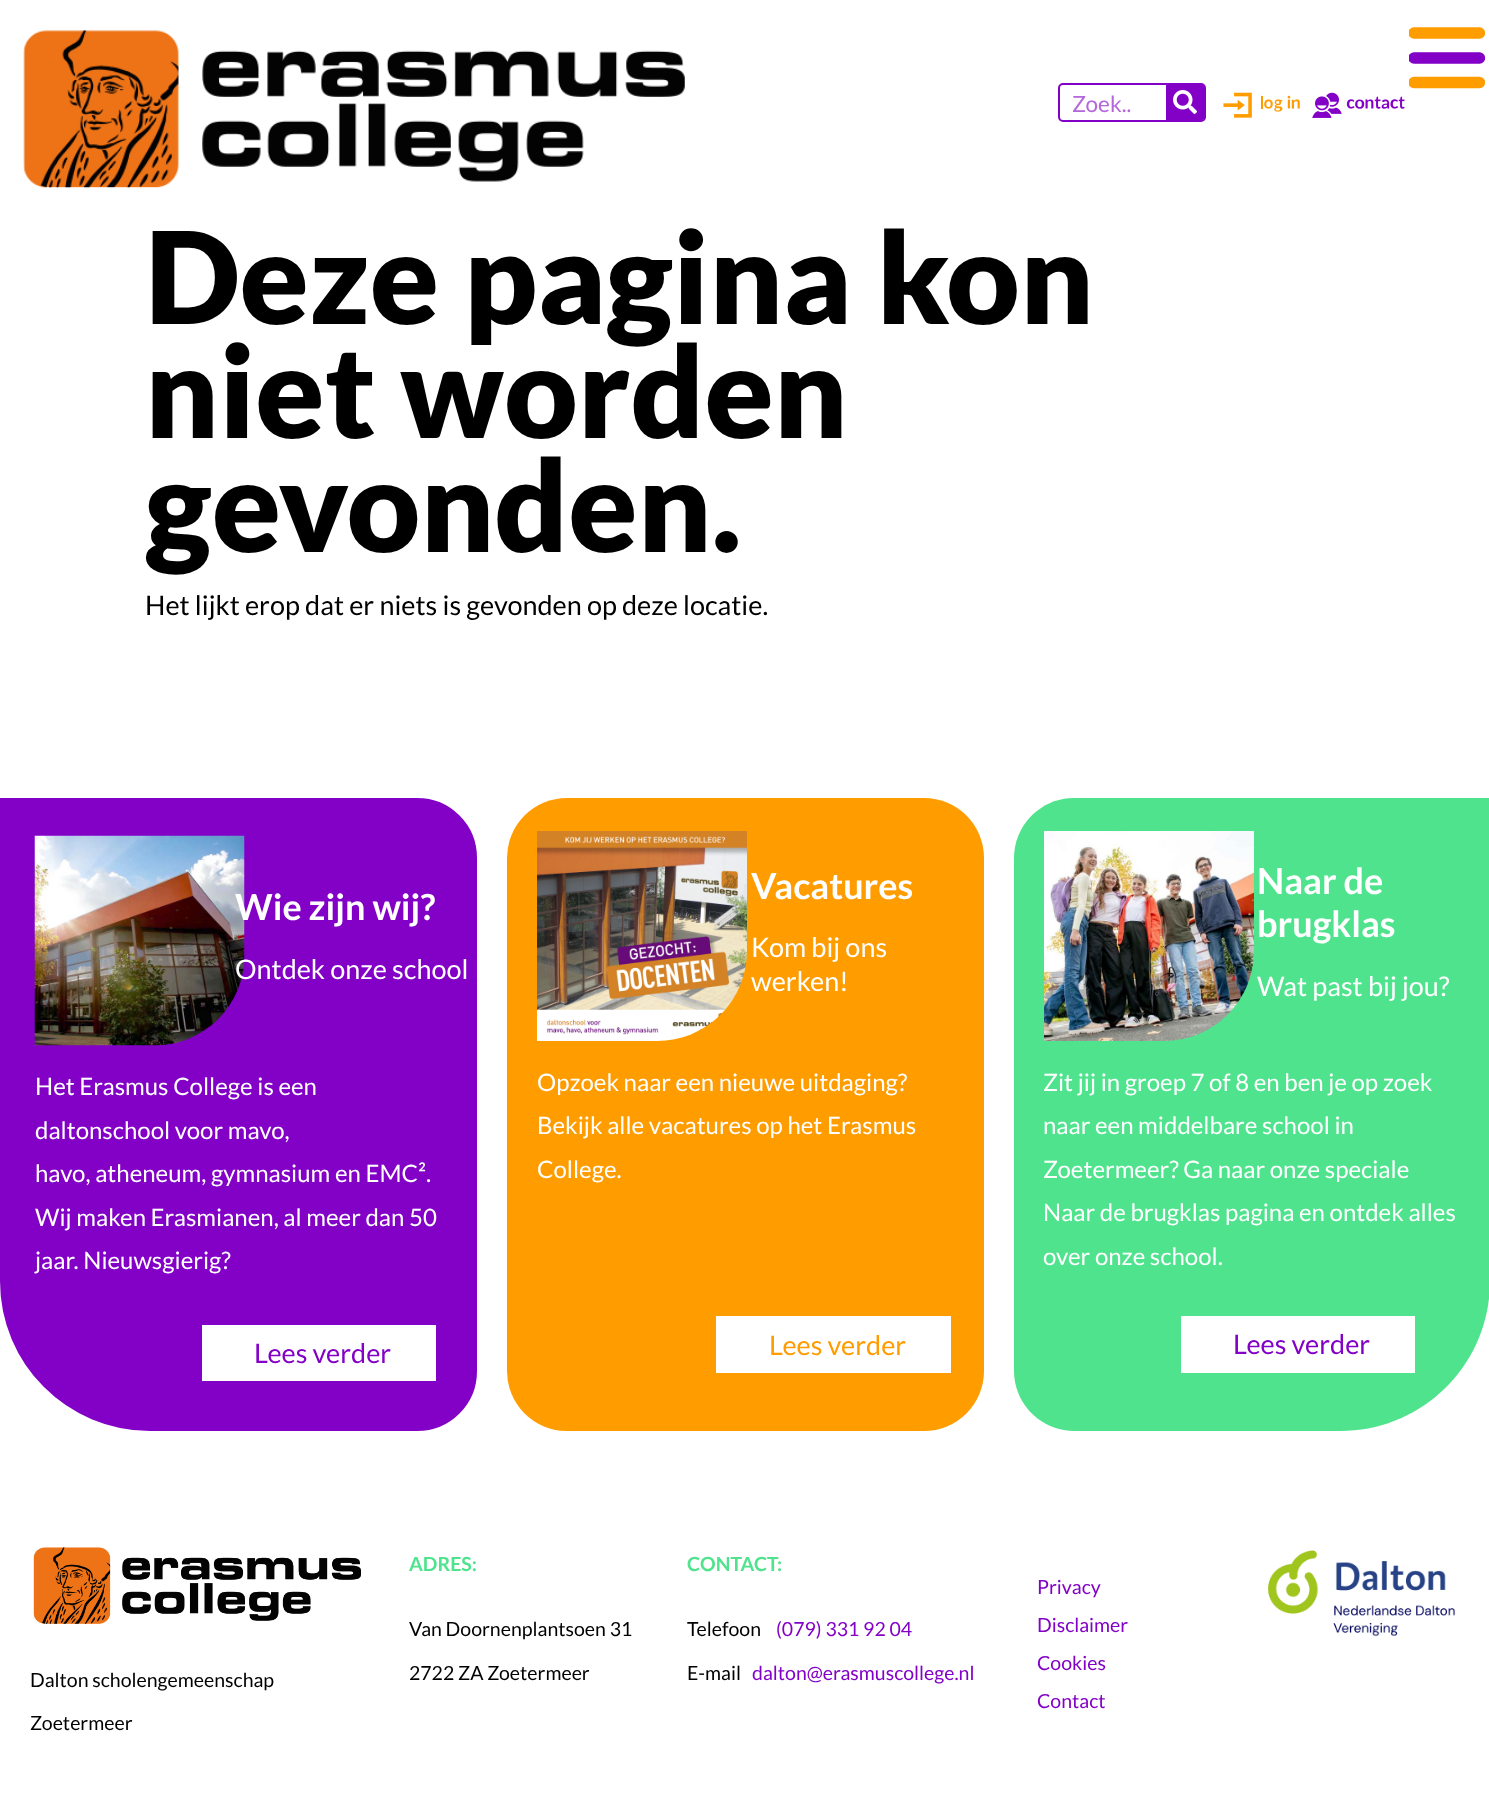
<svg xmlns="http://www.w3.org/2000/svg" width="1489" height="1817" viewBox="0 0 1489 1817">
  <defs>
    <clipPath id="clip1"><rect x="1409" y="20" width="76" height="76"/></clipPath>
  </defs>
  <rect width="100%" height="100%" fill="#ffffff"/>
  <image x="23" y="30" width="662" height="159" href="img1.png"/>
  <rect x="1059" y="84" width="146" height="37" rx="4" fill="none" stroke="#8300c7" stroke-width="2"/>
  <text x="1072" y="112" font-family="Lato" font-size="22.5" fill="#b566dd">Zoek..</text>
  <path d="M1166 84H1202C1203.5 84 1205 85.5 1205 87V117C1205 118.5 1203.5 120 1202 120H1166Z" fill="#8300c7"/>
  <image x="1173" y="90" width="24" height="24" href="img2.png"/>
  <image x="1223" y="92" width="77" height="26" href="img3.png"/>
  <image x="1312" y="92" width="93" height="26" href="img4.png"/>
  <g clip-path="url(#clip1)">
    <path d="M1414 58H1479.5" fill="none" stroke="#8300c7" stroke-width="11.4" stroke-linecap="round" stroke-linejoin="round"/>
    <path d="M1414 33H1479.5" fill="none" stroke="#ff9c00" stroke-width="11.4" stroke-linecap="round" stroke-linejoin="round"/>
    <path d="M1414 82.5H1479.5" fill="none" stroke="#ff9c00" stroke-width="11.4" stroke-linecap="round" stroke-linejoin="round"/>
  </g>
  <text x="145" y="324" font-family="Lato" font-size="127.5" font-weight="900" fill="#000000">Deze pagina kon</text>
  <text x="145" y="438" font-family="Lato" font-size="127.5" font-weight="900" fill="#000000">niet worden</text>
  <text x="145" y="552" font-family="Lato" font-size="127.5" font-weight="900" fill="#000000">gevonden.</text>
  <text x="145" y="615" font-family="Lato" font-size="27" fill="#000000">Het lijkt erop dat er niets is gevonden op deze locatie.</text>
  <path d="M2.5 800.5H417C449 800.5 474.5 826 474.5 858V1371C474.5 1403 449 1428.5 417 1428.5H150C68.5 1428.5 2.5 1362.5 2.5 1281Z" fill="#8300c7" stroke="#8300c7" stroke-width="5"/>
  <image x="34" y="835" width="211" height="211" href="img5.png"/>
  <text x="235" y="920" font-family="Lato" font-size="36" font-weight="bold" fill="#ffffff">Wie zijn wij?</text>
  <text x="235" y="979" font-family="Lato" font-size="27" fill="#ffffff">Ontdek onze school</text>
  <text x="35" y="1095" font-family="Lato" font-size="24" fill="#ffffff">Het Erasmus College is een</text>
  <text x="35" y="1139" font-family="Lato" font-size="24" fill="#ffffff">daltonschool voor mavo,</text>
  <text x="35" y="1182" font-family="Lato" font-size="24" fill="#ffffff">havo, atheneum, gymnasium en EMC².</text>
  <text x="35" y="1226" font-family="Lato" font-size="24" fill="#ffffff">Wij maken Erasmianen, al meer dan 50</text>
  <text x="35" y="1269" font-family="Lato" font-size="24" fill="#ffffff">jaar. Nieuwsgierig?</text>
  <rect x="202" y="1325" width="234" height="56" fill="#ffffff"/>
  <text x="254" y="1363" font-family="Lato" font-size="27" fill="#8300c7">Lees verder</text>
  <rect x="507" y="798" width="477" height="633" rx="60" fill="#ff9c00"/>
  <image x="537" y="831" width="210" height="210" href="img6.png"/>
  <text x="751" y="899" font-family="Lato" font-size="36" font-weight="bold" fill="#ffffff">Vacatures</text>
  <text x="751" y="957" font-family="Lato" font-size="27" fill="#ffffff">Kom bij ons</text>
  <text x="751" y="991" font-family="Lato" font-size="27" fill="#ffffff">werken!</text>
  <text x="537" y="1091" font-family="Lato" font-size="24" fill="#ffffff">Opzoek naar een nieuwe uitdaging?</text>
  <text x="537" y="1134" font-family="Lato" font-size="24" fill="#ffffff">Bekijk alle vacatures op het Erasmus</text>
  <text x="537" y="1178" font-family="Lato" font-size="24" fill="#ffffff">College.</text>
  <rect x="716" y="1316" width="235" height="57" fill="#ffffff"/>
  <text x="769" y="1355" font-family="Lato" font-size="27" fill="#ff9c00">Lees verder</text>
  <path d="M1074 798H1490V1281C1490 1364 1423 1431 1340 1431H1074C1041 1431 1014 1404 1014 1371V858C1014 825 1041 798 1074 798Z" fill="#50e38e"/>
  <image x="1044" y="831" width="210" height="210" href="img7.png"/>
  <text x="1257" y="894" font-family="Lato" font-size="36" font-weight="bold" fill="#ffffff">Naar de</text>
  <text x="1257" y="937" font-family="Lato" font-size="36" font-weight="bold" fill="#ffffff">brugklas</text>
  <text x="1257" y="996" font-family="Lato" font-size="27" fill="#ffffff">Wat past bij jou?</text>
  <text x="1043" y="1091" font-family="Lato" font-size="24" fill="#ffffff">Zit jij in groep 7 of 8 en ben je op zoek</text>
  <text x="1043" y="1134" font-family="Lato" font-size="24" fill="#ffffff">naar een middelbare school in</text>
  <text x="1043" y="1178" font-family="Lato" font-size="24" fill="#ffffff">Zoetermeer? Ga naar onze speciale</text>
  <text x="1043" y="1221" font-family="Lato" font-size="24" fill="#ffffff">Naar de brugklas pagina en ontdek alles</text>
  <text x="1043" y="1265" font-family="Lato" font-size="24" fill="#ffffff">over onze school.</text>
  <rect x="1181" y="1316" width="234" height="57" fill="#ffffff"/>
  <text x="1233" y="1354" font-family="Lato" font-size="27" fill="#8300c7">Lees verder</text>
  <image x="33" y="1547" width="328" height="77" href="img8.png"/>
  <text x="30" y="1687" font-family="Lato" font-size="19.5" fill="#000000">Dalton scholengemeenschap</text>
  <text x="30" y="1730" font-family="Lato" font-size="19.5" fill="#000000">Zoetermeer</text>
  <text x="409" y="1571" font-family="Lato" font-size="19.5" font-weight="bold" fill="#50e38e">ADRES:</text>
  <text x="409" y="1636" font-family="Lato" font-size="19.5" fill="#000000">Van Doornenplantsoen 31</text>
  <text x="409" y="1680" font-family="Lato" font-size="19.5" fill="#000000">2722 ZA Zoetermeer</text>
  <text x="687" y="1571" font-family="Lato" font-size="19.5" font-weight="bold" fill="#50e38e">CONTACT:</text>
  <text x="687" y="1636" font-family="Lato" font-size="19.5" fill="#000000">Telefoon</text>
  <text x="776" y="1636" font-family="Lato" font-size="19.5" fill="#8300c7">(079) 331 92 04</text>
  <text x="687" y="1680" font-family="Lato" font-size="19.5" fill="#000000">E-mail</text>
  <text x="752" y="1680" font-family="Lato" font-size="19.5" fill="#8300c7">dalton@erasmuscollege.nl</text>
  <text x="1037" y="1594" font-family="Lato" font-size="19.5" fill="#8300c7">Privacy</text>
  <text x="1037" y="1632" font-family="Lato" font-size="19.5" fill="#8300c7">Disclaimer</text>
  <text x="1037" y="1670" font-family="Lato" font-size="19.5" fill="#8300c7">Cookies</text>
  <text x="1037" y="1708" font-family="Lato" font-size="19.5" fill="#8300c7">Contact</text>
  <image x="1268" y="1550" width="188" height="87" href="img9.png"/>
</svg>
